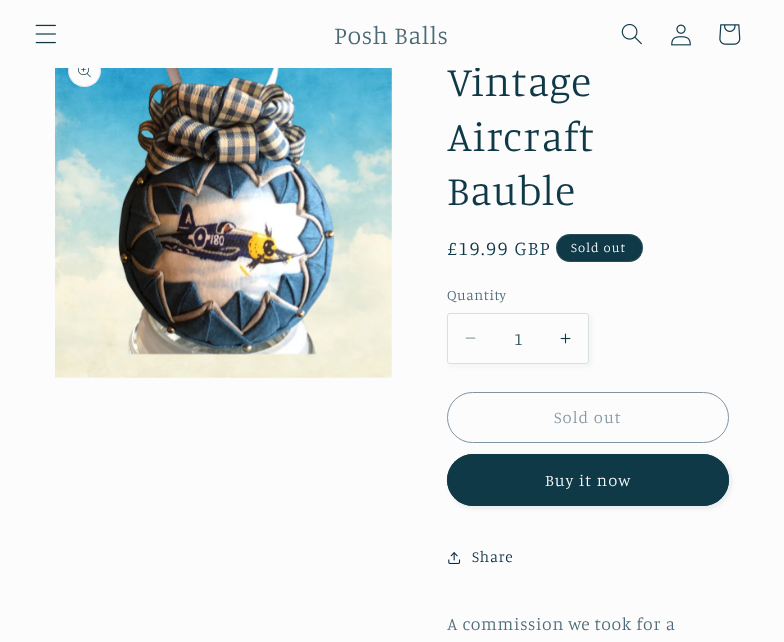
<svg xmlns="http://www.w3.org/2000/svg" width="784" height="642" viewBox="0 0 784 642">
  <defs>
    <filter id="blur1" x="-50%" y="-200%" width="200%" height="500%"><feGaussianBlur stdDeviation="2.5"/></filter>
  </defs>
  <rect width="100%" height="100%" fill="#fcfcfc"/>
  <image x="55" y="68" width="337" height="310" href="img6.png"/>
  <circle cx="84.5" cy="70.5" r="16.5" fill="#fcfcfc"/>
  <circle cx="84.5" cy="70.5" r="16" fill="none" stroke="#103948" stroke-opacity="0.1"/>
  <text x="447" y="96" font-family="Manuale" font-size="42" font-weight="300" letter-spacing="0.6" fill="#103948">Vintage</text>
  <rect x="68" y="54" width="412" height="14" fill="#fcfcfc"/>
  <image x="35" y="24" width="21" height="20" href="img1.png"/>
  <text x="334" y="44" font-family="Manuale" font-size="25" font-weight="300" letter-spacing="0.6" fill="#4b6a75">Posh Balls</text>
  <image x="621" y="23" width="21" height="22" href="img2.png"/>
  <image x="671" y="24" width="20" height="22" href="img3.png"/>
  <image x="719" y="24" width="22" height="21" href="img4.png"/>
  <image x="78" y="68" width="13" height="10" href="img5.png"/>
  <text x="447" y="151" font-family="Manuale" font-size="42" font-weight="300" letter-spacing="0.6" fill="#103948">Aircraft</text>
  <text x="447" y="205" font-family="Manuale" font-size="42" font-weight="300" letter-spacing="0.6" fill="#103948">Bauble</text>
  <text x="447" y="255" font-family="Manuale" font-size="19.75" font-weight="300" letter-spacing="1.5" fill="#103948">£19.99 GBP</text>
  <rect x="556" y="234" width="87" height="28" rx="14" fill="#103948"/>
  <rect x="556.5" y="234.5" width="86" height="27" rx="13.5" fill="none" stroke="#fcfcfc" stroke-opacity="0.1"/>
  <text x="571" y="252" font-family="Manuale" font-size="13" font-weight="300" letter-spacing="1.1" fill="#fcfcfc">Sold out</text>
  <text x="447" y="300" font-family="Manuale" font-size="14.5" font-weight="300" letter-spacing="0.5" fill="#4b6a75">Quantity</text>
  <rect x="449" y="315" width="142" height="51" rx="3" fill="#103948" fill-opacity="0.05" filter="url(#blur1)"/>
  <rect x="447" y="313" width="142" height="51" rx="3" fill="#fcfcfc"/>
  <image x="465" y="337" width="11" height="2" href="img7.png"/>
  <image x="560" y="333" width="11" height="11" href="img8.png"/>
  <rect x="447.5" y="313.5" width="141" height="50" rx="2.5" fill="none" stroke="#d9dfe1"/>
  <text x="514" y="345" font-family="Manuale" font-size="17.6" font-weight="300" fill="#335663">1</text>
  <rect x="447.5" y="392.5" width="281" height="50" rx="25" fill="none" stroke="#8194a1"/>
  <text x="554" y="423" font-family="Manuale" font-size="16.5" font-weight="300" letter-spacing="1.1" fill="#8194a1">Sold out</text>
  <rect x="449" y="456" width="282" height="52" rx="26" fill="#103948" fill-opacity="0.1" filter="url(#blur1)"/>
  <rect x="447" y="454" width="282" height="52" rx="26" fill="#103948"/>
  <rect x="447.5" y="454.5" width="281" height="51" rx="25.5" fill="none" stroke="#103948"/>
  <text x="545" y="486" font-family="Manuale" font-size="16.5" font-weight="300" letter-spacing="1.1" fill="#fcfcfc">Buy it now</text>
  <image x="448" y="552" width="13" height="12" href="img9.png"/>
  <text x="472" y="562" font-family="Manuale" font-size="15.5" font-weight="300" letter-spacing="0.65" fill="#052c46">Share</text>
  <text x="447" y="630" font-family="Manuale" font-size="17.6" font-weight="300" letter-spacing="0.65" fill="#4b6a75">A commission we took for a</text>
</svg>
